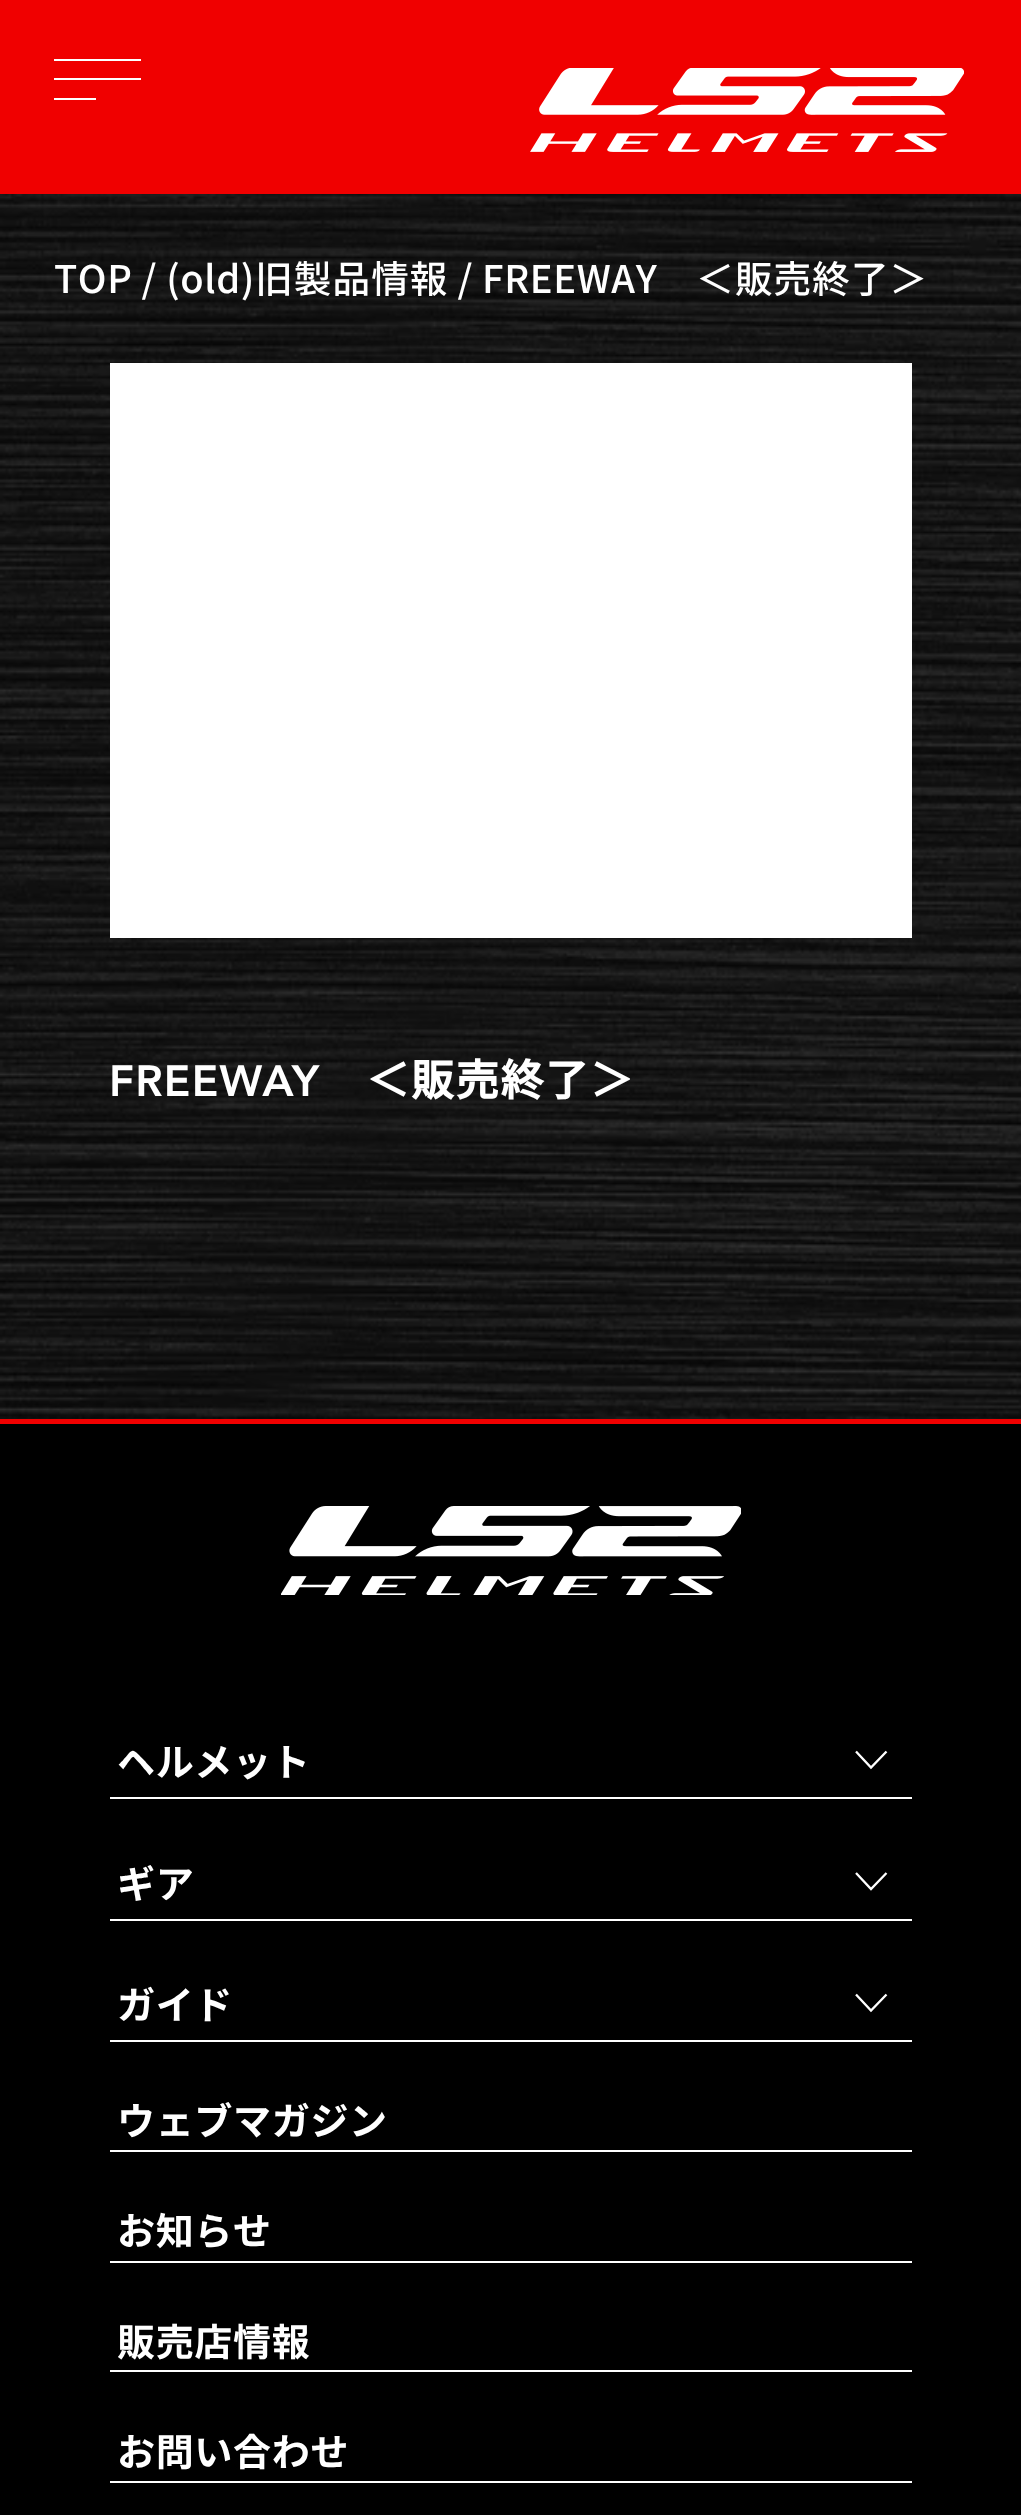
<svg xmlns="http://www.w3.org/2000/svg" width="1021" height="2515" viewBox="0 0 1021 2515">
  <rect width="100%" height="100%" fill="#000000"/>
  <rect x="0" y="0" width="1021" height="194" fill="#f00000"/>
  <rect x="54" y="59" width="87" height="2" fill="#ffffff"/>
  <rect x="54" y="78" width="87" height="2" fill="#ffffff"/>
  <rect x="54" y="98" width="42" height="2" fill="#ffffff"/>
  <image x="530" y="68" width="434" height="84" href="img1.png"/>
  <image x="0" y="194" width="1021" height="1225" href="img2.png"/>
  <text x="54" y="293" font-family="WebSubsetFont" font-size="38.1" font-weight="500" letter-spacing="0.6" fill="#ffffff">TOP / (old)旧製品情報 / FREEWAY　＜販売終了＞</text>
  <rect x="0" y="1419" width="1021" height="5" fill="#f00000"/>
  <rect x="110" y="363" width="802" height="575" fill="#ffffff"/>
  <text x="109" y="1096" font-family="Avenir" font-size="43.5" font-weight="900" letter-spacing="1.25" fill="#ffffff">FREEWAY</text>
  <text x="366" y="1096" font-family="WebSubsetFont" font-size="43.5" font-weight="bold" letter-spacing="1.25" fill="#ffffff">＜販売終了＞</text>
  <image x="281" y="1506" width="460" height="89" href="img3.png"/>
  <rect x="110" y="1797" width="802" height="2" fill="#ffffff"/>
  <text x="117" y="1776" font-family="'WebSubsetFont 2'" font-size="38.1" font-weight="bold" letter-spacing="0.6" fill="#ffffff">ヘルメット</text>
  <path d="M856 1751.5L871 1767.5L886.5 1751.5" fill="none" stroke="#ffffff" stroke-width="2.3"/>
  <rect x="110" y="1919" width="802" height="2" fill="#ffffff"/>
  <text x="117" y="1898" font-family="'WebSubsetFont 2'" font-size="38.1" font-weight="bold" letter-spacing="0.6" fill="#ffffff">ギア</text>
  <path d="M856 1873L871 1889L886.5 1873" fill="none" stroke="#ffffff" stroke-width="2.3"/>
  <rect x="110" y="2040" width="802" height="2" fill="#ffffff"/>
  <text x="117" y="2019" font-family="'WebSubsetFont 2'" font-size="38.1" font-weight="bold" letter-spacing="0.6" fill="#ffffff">ガイド</text>
  <path d="M856 1994.5L871 2010.5L886.5 1994.5" fill="none" stroke="#ffffff" stroke-width="2.3"/>
  <rect x="110" y="2150" width="802" height="2" fill="#ffffff"/>
  <text x="117" y="2135" font-family="'WebSubsetFont 2'" font-size="38.1" font-weight="bold" letter-spacing="0.6" fill="#ffffff">ウェブマガジン</text>
  <rect x="110" y="2261" width="802" height="2" fill="#ffffff"/>
  <text x="117" y="2245" font-family="'WebSubsetFont 2'" font-size="38.1" font-weight="bold" letter-spacing="0.6" fill="#ffffff">お知らせ</text>
  <rect x="110" y="2370" width="802" height="2" fill="#ffffff"/>
  <text x="117" y="2356" font-family="'WebSubsetFont 2'" font-size="38.1" font-weight="bold" letter-spacing="0.6" fill="#ffffff">販売店情報</text>
  <rect x="110" y="2481" width="802" height="2" fill="#ffffff"/>
  <text x="117" y="2466" font-family="'WebSubsetFont 2'" font-size="38.1" font-weight="bold" letter-spacing="0.6" fill="#ffffff">お問い合わせ</text>
</svg>
